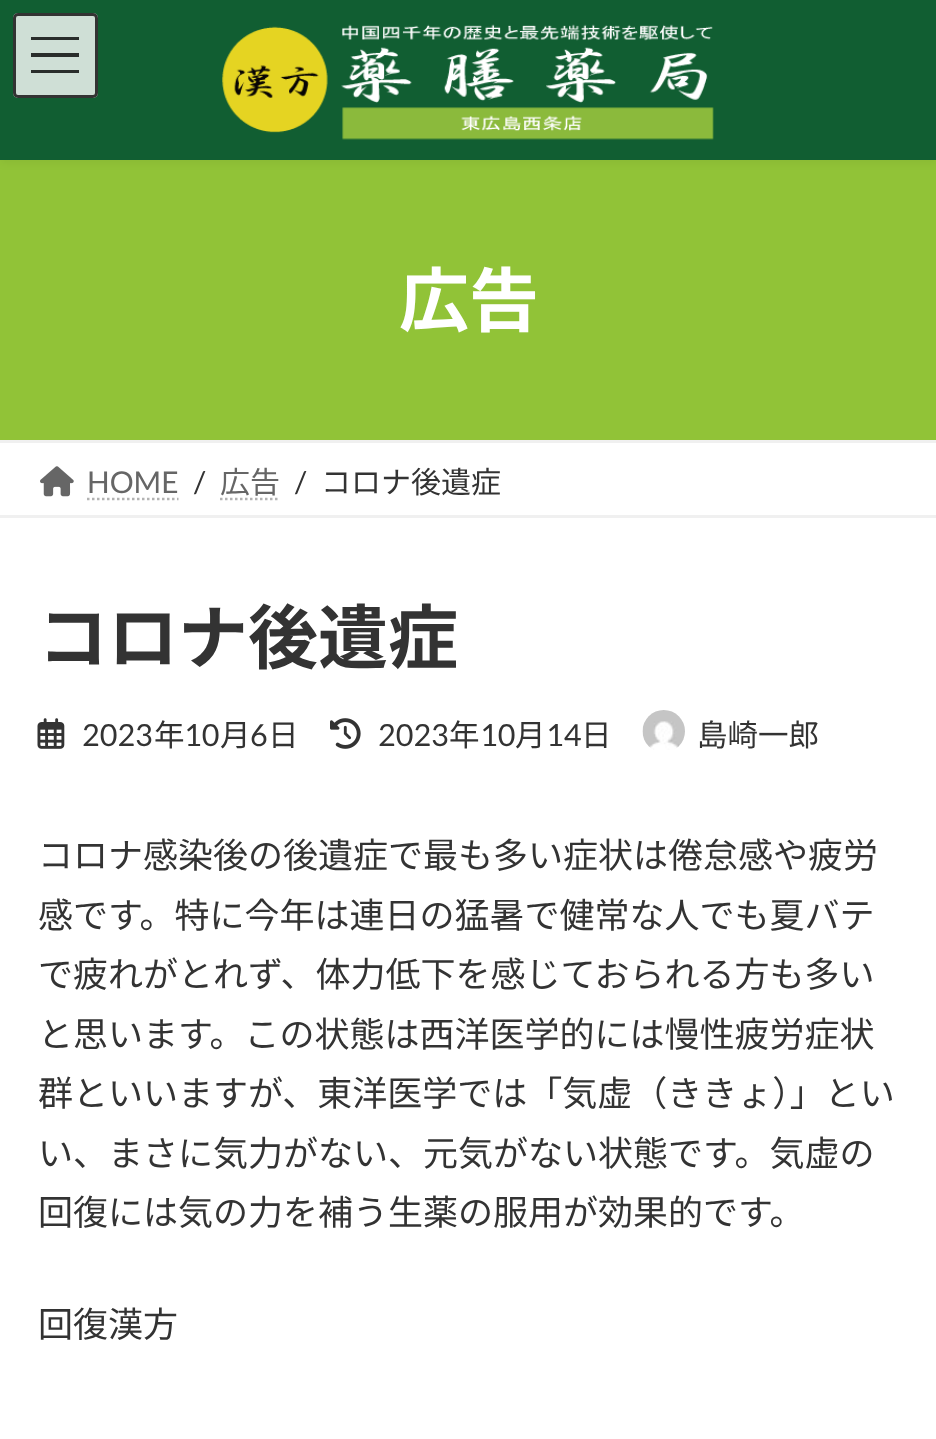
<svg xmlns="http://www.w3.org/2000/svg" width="936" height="1439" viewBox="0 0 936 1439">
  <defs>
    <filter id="blur1" x="-50%" y="-200%" width="200%" height="500%"><feGaussianBlur stdDeviation="4"/></filter>
  </defs>
  <rect width="100%" height="100%" fill="#ffffff"/>
  <rect x="0" y="160" width="936" height="280" fill="#91c337"/>
  <rect x="0" y="3" width="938" height="160" fill="#000000" fill-opacity="0.05" filter="url(#blur1)"/>
  <rect x="0" y="0" width="936" height="160" fill="#115e32"/>
  <image x="222" y="24" width="492" height="116" href="img1.png"/>
  <rect x="13" y="13" width="85" height="85" rx="5" fill="#cfdfd6"/>
  <rect x="31" y="37" width="48" height="3" fill="#292d2b"/>
  <rect x="31" y="53" width="48" height="4" fill="#292d2b"/>
  <rect x="31" y="70" width="48" height="3" fill="#292d2b"/>
  <rect x="14.5" y="14.5" width="82" height="82" rx="3.5" fill="none" stroke="#333333" stroke-width="3"/>
  <text x="399" y="326" font-family="Noto Sans JP" font-size="70" font-weight="bold" fill="#ffffff">広告</text>
  <rect x="0" y="440" width="936" height="3" fill="#f0f0f0"/>
  <rect x="0" y="515" width="936" height="3" fill="#f0f0f0"/>
  <image x="40" y="466" width="34" height="31" href="img2.png"/>
  <text x="87" y="493" font-family="Lato" font-size="30" fill="#666666">HOME</text>
  <path d="M87 499H178.5" fill="none" stroke="#b3b3b3" stroke-width="2.5" stroke-dasharray="2.5 2.5"/>
  <text x="194" y="493" font-family="Lato" font-size="30" fill="#333333">/</text>
  <text x="220" y="493" font-family="Noto Sans JP" font-size="30" fill="#666666">広告</text>
  <path d="M220 499H280" fill="none" stroke="#b3b3b3" stroke-width="2.5" stroke-dasharray="2.5 2.5"/>
  <text x="295" y="493" font-family="Lato" font-size="30" fill="#333333">/</text>
  <text x="321" y="493" font-family="Noto Sans JP" font-size="30" fill="#333333">コロナ後遺症</text>
  <text x="38" y="663" font-family="Noto Sans JP" font-size="70" font-weight="bold" fill="#333333">コロナ後遺症</text>
  <image x="37" y="718" width="28" height="31" href="img3.png"/>
  <text x="82" y="746" font-family="Lato" font-size="30.5" fill="#333333">2023</text>
  <text x="154" y="746" font-family="Noto Sans JP" font-size="30.5" fill="#333333">年</text>
  <text x="184" y="746" font-family="Lato" font-size="30.5" fill="#333333">10</text>
  <text x="220" y="746" font-family="Noto Sans JP" font-size="30.5" fill="#333333">月</text>
  <text x="250" y="746" font-family="Lato" font-size="30.5" fill="#333333">6</text>
  <text x="268" y="746" font-family="Noto Sans JP" font-size="30.5" fill="#333333">日</text>
  <image x="330" y="718" width="31" height="31" href="img4.png"/>
  <text x="378" y="746" font-family="Lato" font-size="30.5" fill="#333333">2023</text>
  <text x="449" y="746" font-family="Noto Sans JP" font-size="30.5" fill="#333333">年</text>
  <text x="480" y="746" font-family="Lato" font-size="30.5" fill="#333333">10</text>
  <text x="515" y="746" font-family="Noto Sans JP" font-size="30.5" fill="#333333">月</text>
  <text x="546" y="746" font-family="Lato" font-size="30.5" fill="#333333">14</text>
  <text x="581" y="746" font-family="Noto Sans JP" font-size="30.5" fill="#333333">日</text>
  <image x="642" y="710" width="43" height="40" href="img5.png"/>
  <text x="697" y="746" font-family="Noto Sans JP" font-size="30.5" fill="#333333">島崎一郎</text>
  <text x="38" y="868" font-family="Noto Sans JP" font-size="35" fill="#333333">コロナ感染後の後遺症で最も多い症状は倦怠感や疲労</text>
  <text x="38" y="928" font-family="Noto Sans JP" font-size="35" fill="#333333">感です。特に今年は連日の猛暑で健常な人でも夏バテ</text>
  <text x="38" y="987" font-family="Noto Sans JP" font-size="35" fill="#333333">で疲れがとれず、体力低下を感じておられる方も多い</text>
  <text x="38" y="1047" font-family="Noto Sans JP" font-size="35" fill="#333333">と思います。この状態は西洋医学的には慢性疲労症状</text>
  <text x="38" y="1106" font-family="Noto Sans JP" font-size="35" fill="#333333">群といいますが、東洋医学では「気虚（ききょ）」とい</text>
  <text x="38" y="1166" font-family="Noto Sans JP" font-size="35" fill="#333333">い、まさに気力がない、元気がない状態です。気虚の</text>
  <text x="38" y="1225" font-family="Noto Sans JP" font-size="35" fill="#333333">回復には気の力を補う生薬の服用が効果的です。</text>
  <text x="38" y="1337" font-family="Noto Sans JP" font-size="35" fill="#333333">回復漢方</text>
</svg>
